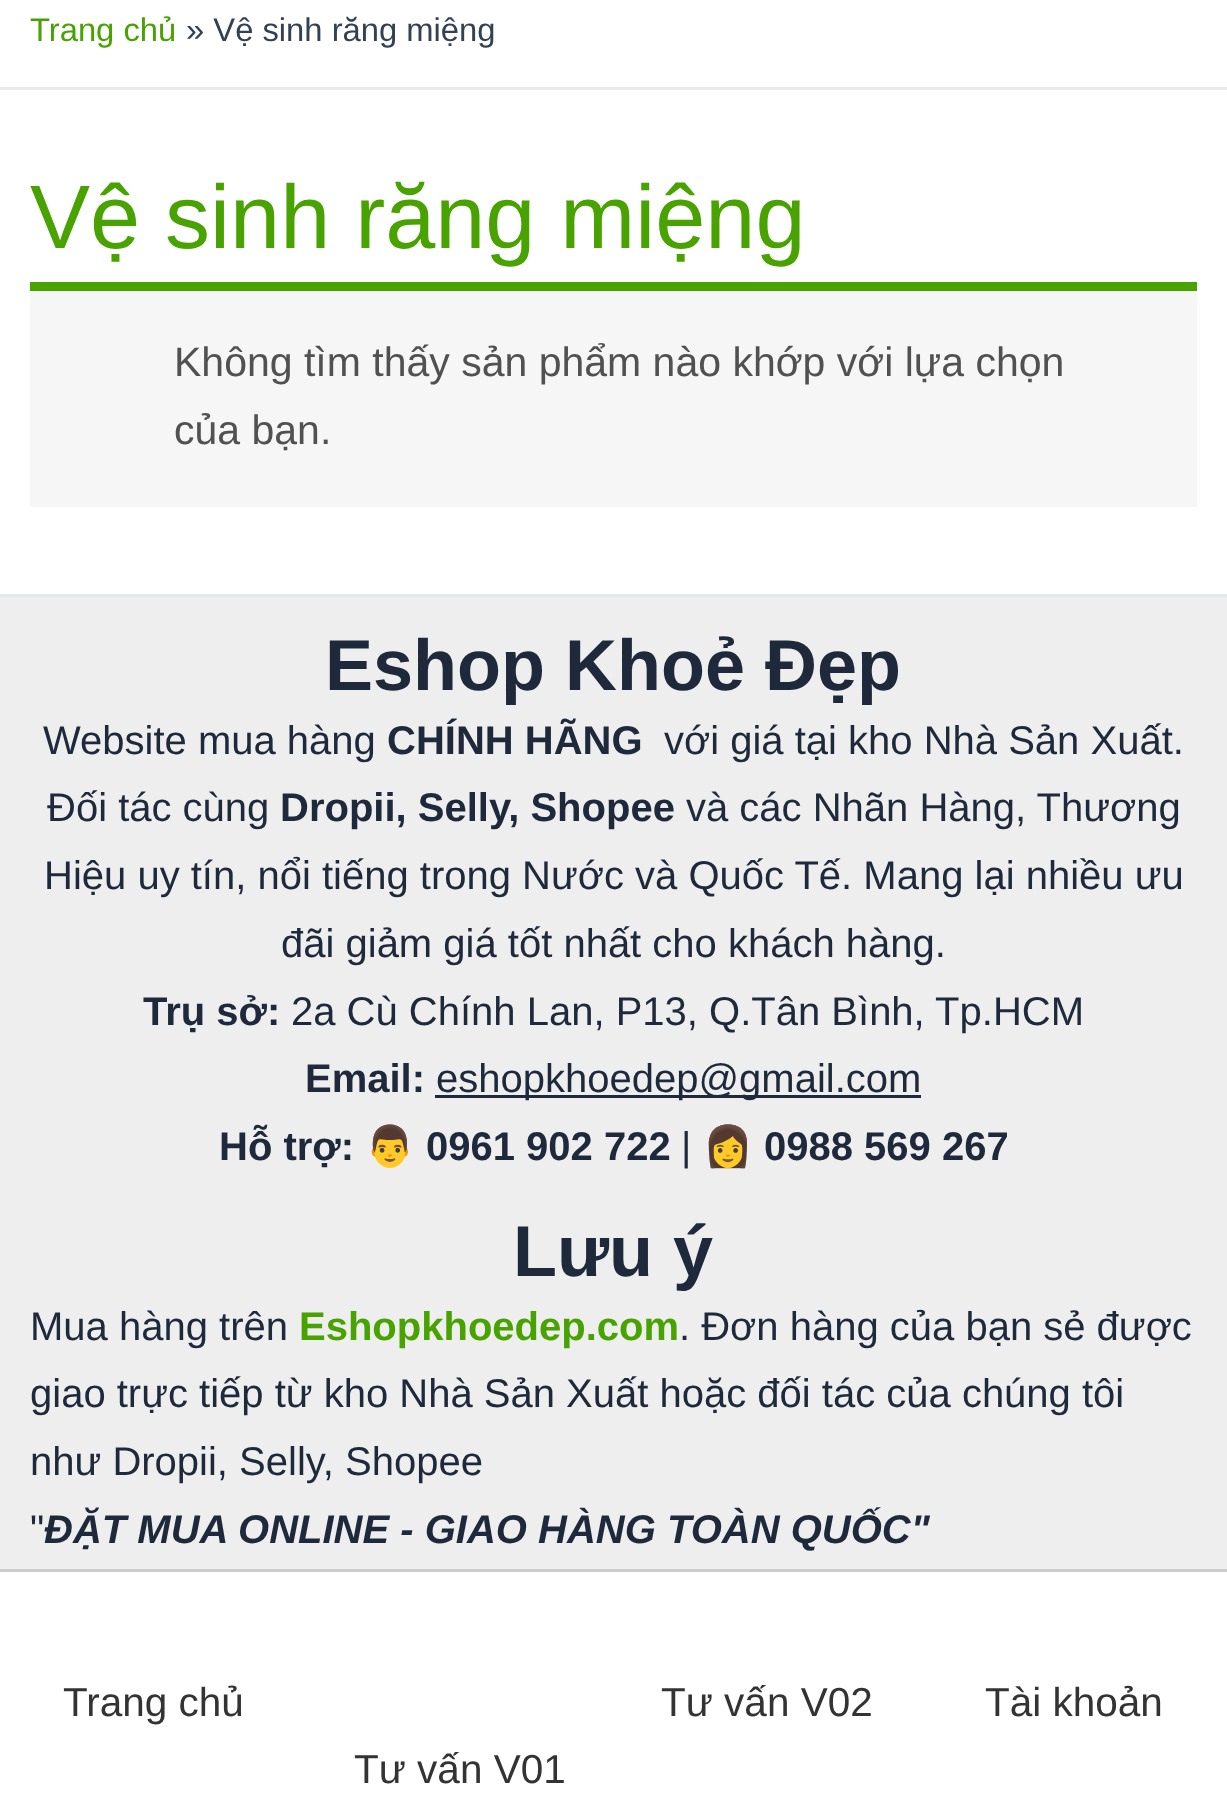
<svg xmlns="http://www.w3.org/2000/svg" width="1227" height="1805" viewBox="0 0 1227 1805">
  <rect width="100%" height="100%" fill="#ffffff"/>
  <rect x="0" y="87" width="1227" height="3" fill="#eaeaea"/>
  <text x="30" y="41" font-family="Liberation Sans" font-size="32.75" fill="#48a300">Trang chủ</text>
  <text x="186" y="41" font-family="Liberation Sans" font-size="32.75" fill="#334155">» Vệ sinh răng miệng</text>
  <text x="30" y="248" font-family="Liberation Sans" font-size="90" fill="#48a300">Vệ sinh răng miệng</text>
  <rect x="30" y="291" width="1167" height="216" fill="#f7f6f7"/>
  <rect x="30" y="282" width="1167" height="9" fill="#48a300"/>
  <text x="174" y="376" font-family="Liberation Sans" font-size="41" fill="#515151">Không tìm thấy sản phẩm nào khớp với lựa chọn</text>
  <text x="174" y="444" font-family="Liberation Sans" font-size="41" fill="#515151">của bạn.</text>
  <rect x="0" y="597" width="1227" height="972" fill="#eeeeee"/>
  <rect x="0" y="594" width="1227" height="3" fill="#e2e8f0"/>
  <text x="325" y="690" font-family="Liberation Sans" font-size="72" font-weight="bold" fill="#1e293b">Eshop Khoẻ Đẹp</text>
  <text x="43" y="754" font-family="Liberation Sans" font-size="40" fill="#1e293b">Website mua hàng</text>
  <text x="387" y="754" font-family="Liberation Sans" font-size="40" font-weight="bold" fill="#1e293b">CHÍNH HÃNG</text>
  <text x="664" y="754" font-family="Liberation Sans" font-size="40" fill="#1e293b">với giá tại kho Nhà Sản Xuất.</text>
  <text x="47" y="821" font-family="Liberation Sans" font-size="40" fill="#1e293b">Đối tác cùng</text>
  <text x="280" y="821" font-family="Liberation Sans" font-size="40" font-weight="bold" fill="#1e293b">Dropii, Selly, Shopee</text>
  <text x="686" y="821" font-family="Liberation Sans" font-size="40" fill="#1e293b">và các Nhãn Hàng, Thương</text>
  <text x="44" y="889" font-family="Liberation Sans" font-size="40" fill="#1e293b">Hiệu uy tín, nổi tiếng trong Nước và Quốc Tế. Mang lại nhiều ưu</text>
  <text x="281" y="957" font-family="Liberation Sans" font-size="40" fill="#1e293b">đãi giảm giá tốt nhất cho khách hàng.</text>
  <text x="143" y="1025" font-family="Liberation Sans" font-size="40" font-weight="bold" fill="#1e293b">Trụ sở:</text>
  <text x="291" y="1025" font-family="Liberation Sans" font-size="40" fill="#1e293b">2a Cù Chính Lan, P13, Q.Tân Bình, Tp.HCM</text>
  <text x="305" y="1092" font-family="Liberation Sans" font-size="40" font-weight="bold" fill="#1e293b">Email:</text>
  <rect x="435" y="1095" width="486" height="3" fill="#1e293b"/>
  <text x="436" y="1092" font-family="Liberation Sans" font-size="40" fill="#1e293b">eshopkhoedep@gmail.com</text>
  <text x="219" y="1160" font-family="Liberation Sans" font-size="40" font-weight="bold" fill="#1e293b">Hỗ trợ:</text>
  <text x="365" y="1160" font-family="Noto Color Emoji" font-size="40" fill="#1e293b">👨</text>
  <text x="426" y="1160" font-family="Liberation Sans" font-size="40" font-weight="bold" fill="#1e293b">0961 902 722</text>
  <text x="681" y="1160" font-family="Liberation Sans" font-size="40" fill="#1e293b">|</text>
  <text x="703" y="1160" font-family="Noto Color Emoji" font-size="40" fill="#1e293b">👩</text>
  <text x="764" y="1160" font-family="Liberation Sans" font-size="40" font-weight="bold" fill="#1e293b">0988 569 267</text>
  <text x="513" y="1276" font-family="Liberation Sans" font-size="72" font-weight="bold" fill="#1e293b">Lưu ý</text>
  <text x="30" y="1340" font-family="Liberation Sans" font-size="40" fill="#1e293b">Mua hàng trên</text>
  <text x="299" y="1340" font-family="Liberation Sans" font-size="40" font-weight="bold" fill="#48a300">Eshopkhoedep.com</text>
  <text x="679" y="1340" font-family="Liberation Sans" font-size="40" fill="#1e293b">. Đơn hàng của bạn sẻ được</text>
  <text x="30" y="1407" font-family="Liberation Sans" font-size="40" fill="#1e293b">giao trực tiếp từ kho Nhà Sản Xuất hoặc đối tác của chúng tôi</text>
  <text x="30" y="1475" font-family="Liberation Sans" font-size="40" fill="#1e293b">như Dropii, Selly, Shopee</text>
  <text x="30" y="1543" font-family="Liberation Sans" font-size="40" fill="#1e293b">"</text>
  <text x="44" y="1543" font-family="Liberation Sans" font-size="40" font-weight="bold" font-style="italic" fill="#1e293b">ĐẶT MUA ONLINE - GIAO HÀNG TOÀN QUỐC"</text>
  <rect x="0" y="1569" width="1227" height="3" fill="#cccccc"/>
  <text x="63" y="1716" font-family="Liberation Sans" font-size="40.5" fill="#333333">Trang chủ</text>
  <text x="661" y="1716" font-family="Liberation Sans" font-size="40.5" fill="#333333">Tư vấn V02</text>
  <text x="985" y="1716" font-family="Liberation Sans" font-size="40.5" fill="#333333">Tài khoản</text>
  <text x="354" y="1783" font-family="Liberation Sans" font-size="40.5" fill="#333333">Tư vấn V01</text>
</svg>
